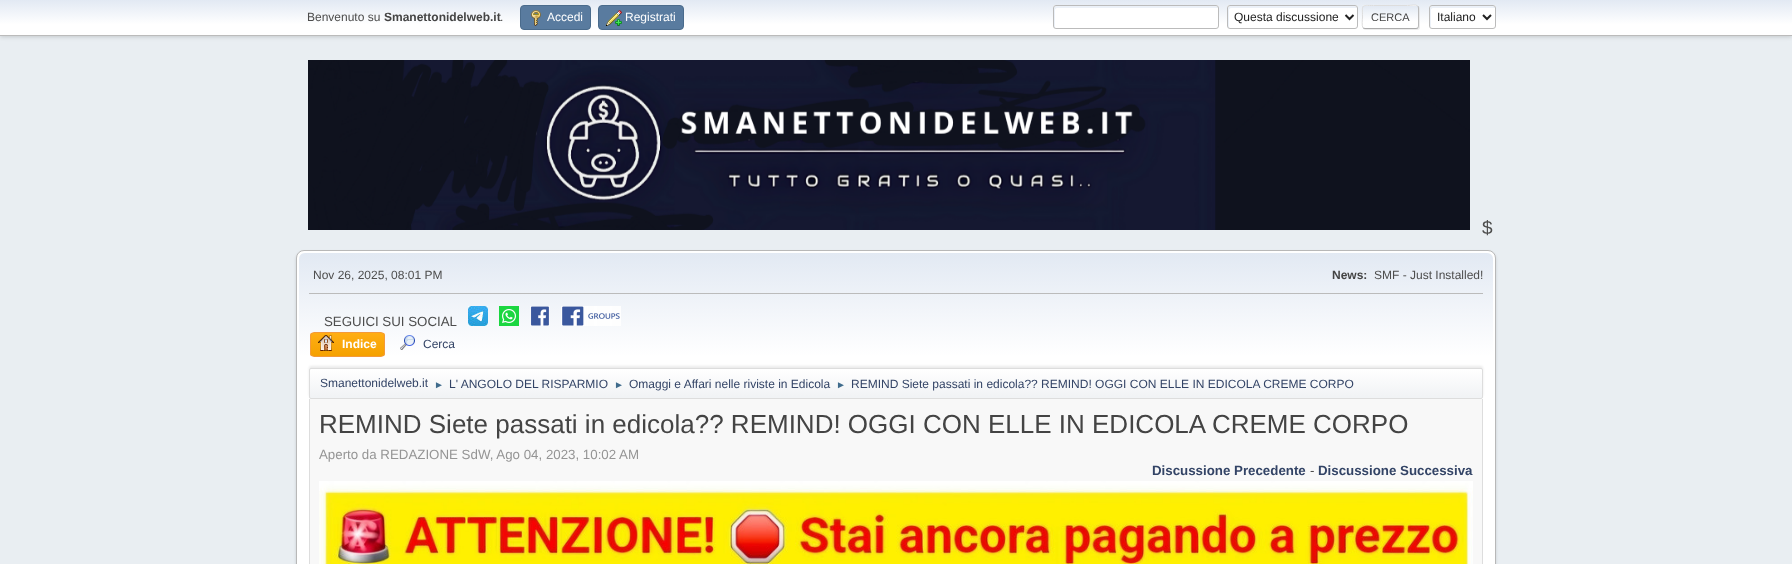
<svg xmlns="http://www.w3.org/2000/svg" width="1792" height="564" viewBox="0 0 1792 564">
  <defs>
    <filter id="blur1" x="-50%" y="-200%" width="200%" height="500%"><feGaussianBlur stdDeviation="2"/></filter>
    <linearGradient id="g1" gradientUnits="userSpaceOnUse" x1="896" y1="0" x2="896" y2="35"><stop offset="0" stop-color="#e2e9f3"/><stop offset="0.7" stop-color="#ffffff"/></linearGradient>
    <filter id="blur2" x="-50%" y="-200%" width="200%" height="500%"><feGaussianBlur stdDeviation="0.5"/></filter>
    <clipPath id="clip1"><rect x="1362" y="5" width="57" height="24" rx="3"/></clipPath>
    <linearGradient id="g2" gradientUnits="userSpaceOnUse" x1="1391" y1="-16" x2="1391" y2="6"><stop offset="0" stop-color="#e2e9f3"/><stop offset="0.7" stop-color="#ffffff"/></linearGradient>
    <linearGradient id="g3" gradientUnits="userSpaceOnUse" x1="1391" y1="6" x2="1391" y2="28"><stop offset="0" stop-color="#e2e9f3"/><stop offset="0.7" stop-color="#ffffff"/></linearGradient>
    <filter id="blur3" x="-50%" y="-200%" width="200%" height="500%"><feGaussianBlur stdDeviation="1.5"/></filter>
    <linearGradient id="g4" gradientUnits="userSpaceOnUse" x1="896" y1="253" x2="896" y2="401"><stop offset="0" stop-color="#e2e9f3"/><stop offset="0.7" stop-color="#ffffff"/></linearGradient>
    <clipPath id="clip2"><rect x="310" y="332" width="75" height="25" rx="4"/></clipPath>
    <linearGradient id="g5" gradientUnits="userSpaceOnUse" x1="348" y1="333" x2="348" y2="356"><stop offset="0" stop-color="#ffae14"/><stop offset="1" stop-color="#f5a100"/></linearGradient>
    <filter id="blur4" x="-50%" y="-200%" width="200%" height="500%"><feGaussianBlur stdDeviation="1"/></filter>
    <clipPath id="clip3"><rect x="309" y="368" width="1174" height="31" rx="2"/></clipPath>
    <linearGradient id="g6" gradientUnits="userSpaceOnUse" x1="896" y1="369" x2="896" y2="398"><stop offset="0" stop-color="#ffffff"/><stop offset="0.95" stop-color="#f1f3f5"/></linearGradient>
  </defs>
  <rect width="100%" height="100%" fill="#e9eef2"/>
  <rect x="0" y="1" width="1792" height="36" fill="#000000" fill-opacity="0.16" filter="url(#blur1)"/>
  <rect x="0" y="0" width="1792" height="35" fill="url(#g1)"/>
  <rect x="0" y="35" width="1792" height="1" fill="#bbbbbb"/>
  <text x="307" y="21" font-family="Liberation Sans" font-size="12" fill="#4d4d4d">Benvenuto su</text>
  <text x="384" y="21" font-family="Liberation Sans" font-size="12" font-weight="bold" fill="#444444">Smanettonidelweb.it</text>
  <text x="500" y="21" font-family="Liberation Sans" font-size="12" fill="#4d4d4d">.</text>
  <rect x="520.5" y="5.5" width="70" height="24" rx="3.5" fill="#597b9f" stroke="#4a6b8c"/>
  <image x="531" y="10" width="10" height="16" href="img1.png"/>
  <text x="547" y="21" font-family="Liberation Sans" font-size="12" fill="#ffffff">Accedi</text>
  <rect x="598.5" y="5.5" width="85" height="24" rx="3.5" fill="#597b9f" stroke="#4a6b8c"/>
  <image x="606" y="10" width="16" height="16" href="img2.png"/>
  <text x="625" y="21" font-family="Liberation Sans" font-size="12" fill="#ffffff">Registrati</text>
  <rect x="1053" y="5" width="166" height="24" rx="3" fill="#ffffff"/>
  <path d="M1057 8H1218V7L1216 6H1056C1055 6 1054 7 1054 8C1054 11 1053 27 1055 28V10C1055 9 1056 8 1057 8Z" fill="#ecf1f8"/>
  <rect x="1053.5" y="5.5" width="165" height="23" rx="2.5" fill="none" stroke="#bbbbbb"/>
  <rect x="1227" y="5" width="131" height="24" rx="3" fill="#ffffff"/>
  <path d="M1231 8H1357C1357 7 1356 6 1355 6H1230C1229 6 1228 7 1228 8V26C1228 27 1228 27 1229 28V10C1229 9 1230 8 1231 8Z" fill="#ecf1f8"/>
  <rect x="1227.5" y="5.5" width="130" height="23" rx="2.5" fill="none" stroke="#bbbbbb"/>
  <path d="M1345.5 15L1349.5 19L1353.5 15" fill="none" stroke="#222222" stroke-width="2"/>
  <text x="1234" y="21" font-family="Liberation Sans" font-size="12" fill="#222222">Questa discussione</text>
  <rect x="1363" y="6" width="57" height="24" rx="3" fill="#dddddd" fill-opacity="0.57" filter="url(#blur2)"/>
  <g clip-path="url(#clip1)">
    <rect x="1362" y="5" width="57" height="1" fill="url(#g2)"/>
    <rect x="1362" y="6" width="57" height="22" fill="url(#g3)"/>
  </g>
  <path d="M1418 6C1418 6.5 1418.5 7.5 1418.5 8V26C1418.5 26.5 1418 27.5 1418 28" fill="none" stroke="#bbbbbb"/>
  <path d="M1418 28L1416 28.5H1365L1363 28" fill="none" stroke="#aaaaaa"/>
  <path d="M1363 28C1361.5 26 1362.5 19 1362.5 17C1362.5 4 1360.5 5.5 1373.5 5.5H1407.5C1411 5.5 1415.5 4 1418 6" fill="none" stroke="#dddddd"/>
  <text x="1371" y="21" font-family="Liberation Sans" font-size="11" fill="#444444">CERCA</text>
  <rect x="1429" y="5" width="67" height="24" rx="3" fill="#ffffff"/>
  <path d="M1433 8H1495C1495 7 1495 7 1494 6H1442C1433 6 1430 3 1430 11C1430 14 1429 26 1431 28V10C1431 9 1432 8 1433 8Z" fill="#ecf1f8"/>
  <rect x="1429.5" y="5.5" width="66" height="23" rx="2.5" fill="none" stroke="#bbbbbb"/>
  <path d="M1483 15L1487 19L1491 15" fill="none" stroke="#222222" stroke-width="2"/>
  <text x="1437" y="21" font-family="Liberation Sans" font-size="12" fill="#222222">Italiano</text>
  <image x="308" y="60" width="1162" height="170" href="img3.png"/>
  <text x="1482" y="234" font-family="Liberation Sans" font-size="19" fill="#4d4d4d">$</text>
  <rect x="296" y="252" width="1200" height="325" rx="8" fill="#000000" fill-opacity="0.14" filter="url(#blur3)"/>
  <rect x="296.5" y="250.5" width="1199" height="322" rx="7.5" fill="#ffffff" stroke="#b8b8b8"/>
  <path d="M305 253H1487C1490.5 253 1493 255.5 1493 259V401H299V259C299 255.5 301.5 253 305 253Z" fill="url(#g4)"/>
  <rect x="309" y="293" width="1174" height="1" fill="#bbbbbb"/>
  <text x="313" y="279" font-family="Liberation Sans" font-size="12" fill="#4d4d4d">Nov 26, 2025, 08:01 PM</text>
  <text x="1332" y="279" font-family="Liberation Sans" font-size="12" font-weight="bold" fill="#444444">News:</text>
  <text x="1374" y="279" font-family="Liberation Sans" font-size="12" fill="#4d4d4d">SMF - Just Installed!</text>
  <text x="324" y="326" font-family="Liberation Sans" font-size="13.3" fill="#4d4d4d">SEGUICI SUI SOCIAL</text>
  <image x="468" y="306" width="20" height="20" href="img4.png"/>
  <image x="499" y="306" width="20" height="20" href="img5.png"/>
  <image x="530" y="306" width="20" height="20" href="img6.png"/>
  <image x="561" y="306" width="60" height="20" href="img7.png"/>
  <g clip-path="url(#clip2)">
    <rect x="310" y="333" width="75" height="23" fill="url(#g5)"/>
  </g>
  <rect x="310.5" y="332.5" width="74" height="24" rx="3.5" fill="none" stroke="#f49a3a"/>
  <image x="318" y="335" width="16" height="16" href="img8.png"/>
  <text x="342" y="348" font-family="Liberation Sans" font-size="12" font-weight="bold" fill="#ffffff">Indice</text>
  <image x="400" y="335" width="15" height="15" href="img9.png"/>
  <text x="423" y="348" font-family="Liberation Sans" font-size="12" fill="#334466">Cerca</text>
  <rect x="309" y="366" width="1174" height="31" rx="2" fill="#000000" fill-opacity="0.08" filter="url(#blur4)"/>
  <g clip-path="url(#clip3)">
    <rect x="309" y="369" width="1174" height="29" fill="url(#g6)"/>
  </g>
  <rect x="309.5" y="368.5" width="1173" height="30" rx="1.5" fill="none" stroke="#dddddd"/>
  <text x="320" y="387" font-family="Liberation Sans" font-size="12" fill="#334466">Smanettonidelweb.it</text>
  <text x="434" y="388" font-family="Liberation Sans" font-size="10" fill="#3f6b8c">►</text>
  <text x="449" y="388" font-family="Liberation Sans" font-size="12" fill="#334466">L' ANGOLO DEL RISPARMIO</text>
  <text x="614" y="388" font-family="Liberation Sans" font-size="10" fill="#3f6b8c">►</text>
  <text x="629" y="388" font-family="Liberation Sans" font-size="12" fill="#334466">Omaggi e Affari nelle riviste in Edicola</text>
  <text x="836" y="388" font-family="Liberation Sans" font-size="10" fill="#3f6b8c">►</text>
  <text x="851" y="388" font-family="Liberation Sans" font-size="12" fill="#334466">REMIND Siete passati in edicola?? REMIND! OGGI CON ELLE IN EDICOLA CREME CORPO</text>
  <rect x="310" y="399" width="1172" height="165" fill="#f8f8f8"/>
  <path d="M309 399H1483V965C1483 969 1480 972 1476 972H316C312 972 309 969 309 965ZM310 399H1482V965C1482 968 1479 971 1476 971H316C313 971 310 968 310 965Z" fill="#dddddd" fill-rule="evenodd"/>
  <text x="319" y="433" font-family="Liberation Sans" font-size="26" fill="#444444">REMIND Siete passati in edicola?? REMIND! OGGI CON ELLE IN EDICOLA CREME CORPO</text>
  <text x="319" y="459" font-family="Liberation Sans" font-size="13.3" fill="#959595">Aperto da REDAZIONE SdW, Ago 04, 2023, 10:02 AM</text>
  <text x="1152" y="475" font-family="Liberation Sans" font-size="13.3" font-weight="bold" fill="#334466">Discussione Precedente</text>
  <text x="1310" y="475" font-family="Liberation Sans" font-size="13.3" fill="#4d4d4d">-</text>
  <text x="1318" y="475" font-family="Liberation Sans" font-size="13.3" font-weight="bold" fill="#334466">Discussione Successiva</text>
  <image x="319" y="481" width="1154" height="83" href="img10.png"/>
</svg>
